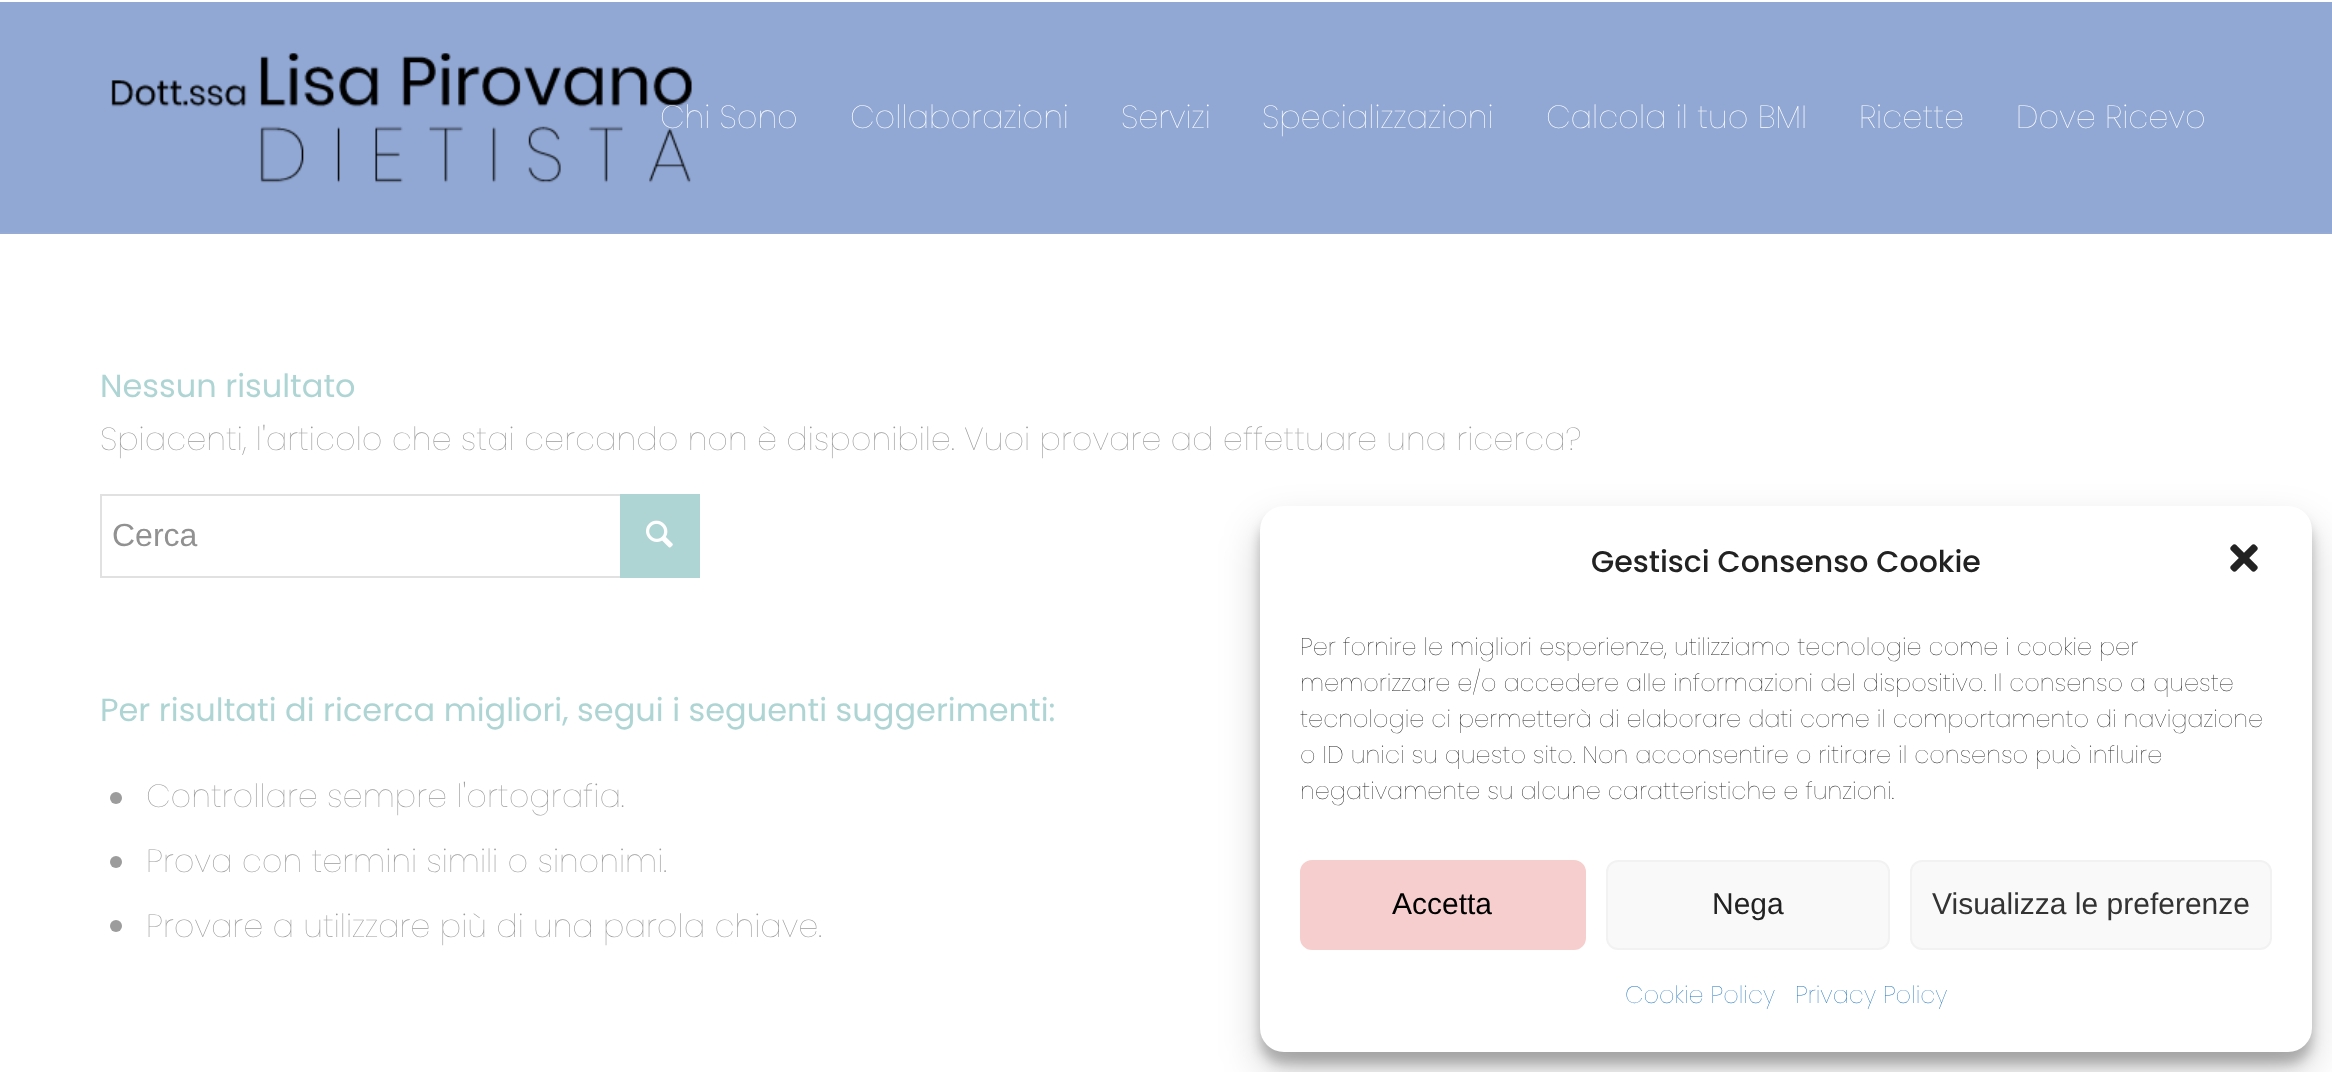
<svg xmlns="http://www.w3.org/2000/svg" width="2332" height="1072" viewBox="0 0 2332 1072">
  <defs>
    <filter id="blur1" x="-50%" y="-200%" width="200%" height="500%"><feGaussianBlur stdDeviation="6"/></filter>
    <filter id="blur2" x="-50%" y="-200%" width="200%" height="500%"><feGaussianBlur stdDeviation="20"/></filter>
  </defs>
  <rect width="100%" height="100%" fill="#91a8d4"/>
  <rect x="0" y="0" width="2332" height="2" fill="#ffffff"/>
  <image x="111" y="53" width="581" height="130" href="img1.png"/>
  <text x="660" y="128" font-family="Poppins" font-size="32" font-weight="200" fill="#ffffff">Chi Sono</text>
  <text x="850" y="128" font-family="Poppins" font-size="32" font-weight="200" fill="#ffffff">Collaborazioni</text>
  <text x="1121" y="128" font-family="Poppins" font-size="32" font-weight="200" fill="#ffffff">Servizi</text>
  <text x="1262" y="128" font-family="Poppins" font-size="32" font-weight="200" fill="#ffffff">Specializzazioni</text>
  <text x="1546" y="128" font-family="Poppins" font-size="32" font-weight="200" fill="#ffffff">Calcola il tuo BMI</text>
  <text x="1859" y="128" font-family="Poppins" font-size="32" font-weight="200" fill="#ffffff">Ricette</text>
  <text x="2016" y="128" font-family="Poppins" font-size="32" font-weight="200" fill="#ffffff">Dove Ricevo</text>
  <rect x="0" y="234" width="2332" height="838" fill="#ffffff"/>
  <rect x="0" y="232" width="2332" height="2" fill="#95abd5"/>
  <text x="100" y="397" font-family="Poppins" font-size="32" fill="#aed5d4">Nessun risultato</text>
  <text x="100" y="450" font-family="Poppins" font-size="32" font-weight="200" fill="#9c9c9c">Spiacenti, l'articolo che stai cercando non è disponibile. Vuoi provare ad effettuare una ricerca?</text>
  <rect x="101" y="495" width="598" height="82" fill="none" stroke="#e1e1e1" stroke-width="2"/>
  <text x="112" y="546" font-family="Liberation Sans" font-size="32" fill="#919191">Cerca</text>
  <rect x="620" y="494" width="80" height="84" fill="#aed5d4"/>
  <image x="646" y="520" width="27" height="28" href="img2.png"/>
  <text x="100" y="721" font-family="Poppins" font-size="32" fill="#aed5d4">Per risultati di ricerca migliori, segui i seguenti suggerimenti:</text>
  <circle cx="116" cy="798" r="6" fill="#9c9c9c"/>
  <text x="146" y="807" font-family="Poppins" font-size="32" font-weight="200" fill="#9c9c9c">Controllare sempre l'ortografia.</text>
  <circle cx="116" cy="862" r="6" fill="#9c9c9c"/>
  <text x="146" y="872" font-family="Poppins" font-size="32" font-weight="200" fill="#9c9c9c">Prova con termini simili o sinonimi.</text>
  <circle cx="116" cy="926" r="6" fill="#9c9c9c"/>
  <text x="146" y="937" font-family="Poppins" font-size="32" font-weight="200" fill="#9c9c9c">Provare a utilizzare più di una parola chiave.</text>
  <rect x="1260" y="518" width="1052" height="546" rx="24" fill="#000000" fill-opacity="0.23" filter="url(#blur1)"/>
  <rect x="1260" y="526" width="1052" height="546" rx="24" fill="#000000" fill-opacity="0.19" filter="url(#blur2)"/>
  <rect x="1260" y="506" width="1052" height="546" rx="24" fill="#ffffff"/>
  <text x="1591" y="572" font-family="Poppins" font-size="30" font-weight="500" fill="#222222">Gestisci Consenso Cookie</text>
  <image x="2230" y="544" width="28" height="28" href="img3.png"/>
  <text x="1300" y="655" font-family="Poppins" font-size="24" font-weight="200" fill="#222222">Per fornire le migliori esperienze, utilizziamo tecnologie come i cookie per</text>
  <text x="1300" y="691" font-family="Poppins" font-size="24" font-weight="200" fill="#222222">memorizzare e/o accedere alle informazioni del dispositivo. Il consenso a queste</text>
  <text x="1300" y="727" font-family="Poppins" font-size="24" font-weight="200" fill="#222222">tecnologie ci permetterà di elaborare dati come il comportamento di navigazione</text>
  <text x="1300" y="763" font-family="Poppins" font-size="24" font-weight="200" fill="#222222">o ID unici su questo sito. Non acconsentire o ritirare il consenso può influire</text>
  <text x="1300" y="799" font-family="Poppins" font-size="24" font-weight="200" fill="#222222">negativamente su alcune caratteristiche e funzioni.</text>
  <rect x="1301" y="861" width="284" height="88" rx="11" fill="#f7cece" stroke="#f7cece" stroke-width="2"/>
  <text x="1392" y="914" font-family="Liberation Sans" font-size="30" fill="#000000">Accetta</text>
  <rect x="1607" y="861" width="282" height="88" rx="11" fill="#f9f9f9" stroke="#f2f2f2" stroke-width="2"/>
  <text x="1712" y="914" font-family="Liberation Sans" font-size="30" fill="#222222">Nega</text>
  <rect x="1911" y="861" width="360" height="88" rx="11" fill="#f9f9f9" stroke="#f2f2f2" stroke-width="2"/>
  <text x="1932" y="914" font-family="Liberation Sans" font-size="30" fill="#333333">Visualizza le preferenze</text>
  <text x="1625" y="1003" font-family="Poppins" font-size="24" font-weight="200" fill="#1e73be">Cookie Policy</text>
  <text x="1795" y="1003" font-family="Poppins" font-size="24" font-weight="200" fill="#1e73be">Privacy Policy</text>
</svg>
